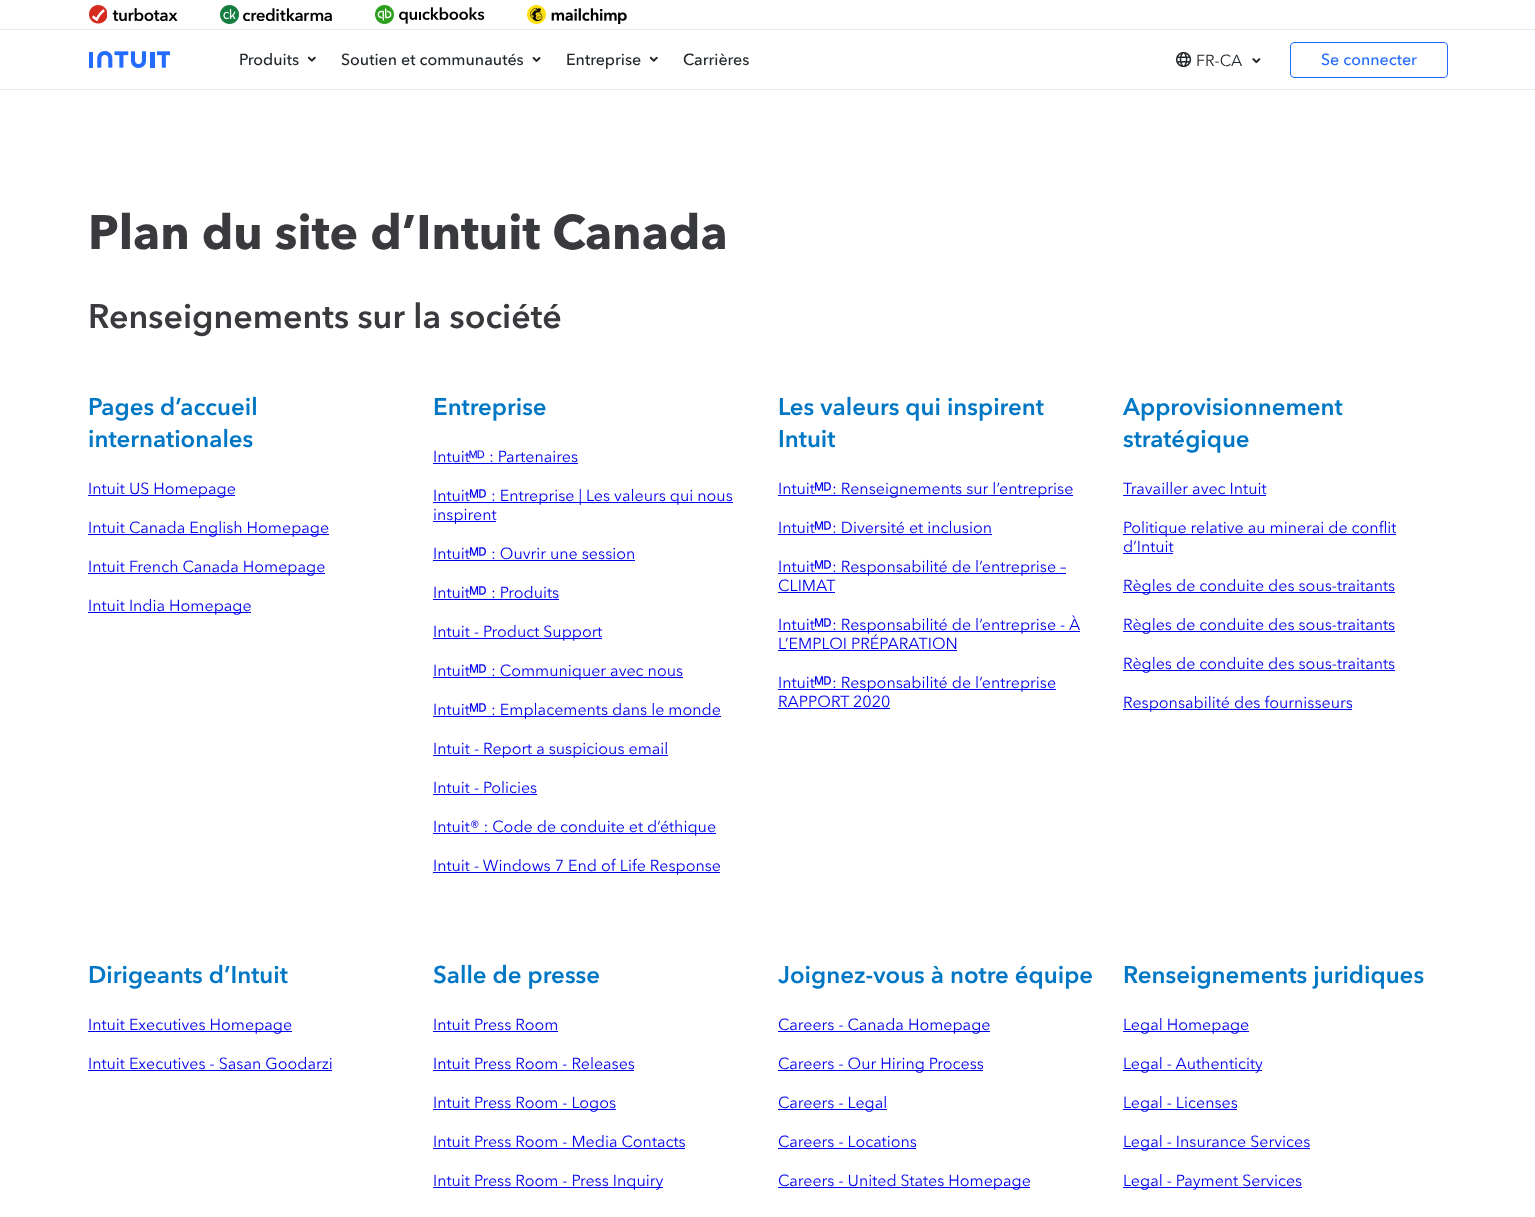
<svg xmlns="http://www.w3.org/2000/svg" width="1535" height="1217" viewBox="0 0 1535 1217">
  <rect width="100%" height="100%" fill="#ffffff"/>
  <rect x="0" y="29" width="1535" height="1" fill="#e6e9ed"/>
  <image x="89" y="5" width="18" height="19" href="img1.png"/>
  <image x="112" y="8" width="66" height="13" href="img2.png"/>
  <image x="220" y="5" width="19" height="19" href="img3.png"/>
  <image x="243" y="8" width="89" height="13" href="img4.png"/>
  <image x="375" y="5" width="19" height="19" href="img5.png"/>
  <image x="399" y="7" width="86" height="17" href="img6.png"/>
  <image x="527" y="5" width="19" height="19" href="img7.png"/>
  <image x="551" y="8" width="76" height="16" href="img8.png"/>
  <rect x="0" y="89" width="1535" height="1" fill="#e6e9ed"/>
  <image x="89" y="51" width="81" height="17" href="img9.png"/>
  <text x="239" y="65" font-family="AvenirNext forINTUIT" font-size="16" font-weight="500" fill="#21262a">Produits</text>
  <image x="307" y="56" width="9" height="6" href="img10.png"/>
  <text x="341" y="65" font-family="AvenirNext forINTUIT" font-size="16" font-weight="500" fill="#21262a">Soutien et communautés</text>
  <image x="532" y="57" width="9" height="5" href="img11.png"/>
  <text x="566" y="65" font-family="AvenirNext forINTUIT" font-size="16" font-weight="500" fill="#21262a">Entreprise</text>
  <image x="649" y="56" width="9" height="6" href="img12.png"/>
  <text x="683" y="65" font-family="AvenirNext forINTUIT" font-size="16" font-weight="500" fill="#21262a">Carrières</text>
  <image x="1176" y="52" width="16" height="16" href="img13.png"/>
  <text x="1196" y="66" font-family="AvenirNext forINTUIT" font-size="16" fill="#21262a">FR-CA</text>
  <image x="1252" y="58" width="9" height="6" href="img14.png"/>
  <rect x="1290.5" y="42.5" width="157" height="35" rx="3.5" fill="none" stroke="#236cff"/>
  <text x="1321" y="65" font-family="AvenirNext forINTUIT" font-size="16" font-weight="500" fill="#236cff">Se connecter</text>
  <text x="88" y="249" font-family="AvenirNext forINTUIT" font-size="48" font-weight="bold" fill="#393a3d">Plan du site d’Intuit Canada</text>
  <text x="88" y="328" font-family="AvenirNext forINTUIT" font-size="34" font-weight="600" fill="#393a3d">Renseignements sur la société</text>
  <text x="88" y="415" font-family="AvenirNext forINTUIT" font-size="24" font-weight="600" fill="#0077c5">Pages d’accueil</text>
  <text x="88" y="447" font-family="AvenirNext forINTUIT" font-size="24" font-weight="600" fill="#0077c5">internationales</text>
  <rect x="88" y="495" width="147" height="1" fill="#0000ee"/>
  <text x="88" y="494" font-family="AvenirNext forINTUIT" font-size="16" fill="#0000ee">Intuit US Homepage</text>
  <rect x="88" y="534" width="241" height="1" fill="#0000ee"/>
  <text x="88" y="533" font-family="AvenirNext forINTUIT" font-size="16" fill="#0000ee">Intuit Canada English Homepage</text>
  <rect x="88" y="573" width="237" height="1" fill="#0000ee"/>
  <text x="88" y="572" font-family="AvenirNext forINTUIT" font-size="16" fill="#0000ee">Intuit French Canada Homepage</text>
  <rect x="88" y="612" width="163" height="1" fill="#0000ee"/>
  <text x="88" y="611" font-family="AvenirNext forINTUIT" font-size="16" fill="#0000ee">Intuit India Homepage</text>
  <text x="433" y="415" font-family="AvenirNext forINTUIT" font-size="24" font-weight="600" fill="#0077c5">Entreprise</text>
  <text x="433" y="462" font-family="AvenirNext forINTUIT" font-size="16" fill="#0000ee">Intuit</text>
  <rect x="433" y="463" width="145" height="1" fill="#0000ee"/>
  <text x="469" y="462" font-family="Liberation Sans" font-size="16" fill="#0000ee">ᴹᴰ</text>
  <text x="489" y="462" font-family="AvenirNext forINTUIT" font-size="16" fill="#0000ee">: Partenaires</text>
  <text x="433" y="501" font-family="AvenirNext forINTUIT" font-size="16" fill="#0000ee">Intuit</text>
  <text x="469" y="501" font-family="FreeSans" font-size="16" fill="#0000ee">🅫</text>
  <rect x="433" y="502" width="300" height="1" fill="#0000ee"/>
  <text x="491" y="501" font-family="AvenirNext forINTUIT" font-size="16" fill="#0000ee">: Entreprise | Les valeurs qui nous</text>
  <rect x="433" y="521" width="63" height="1" fill="#0000ee"/>
  <text x="433" y="520" font-family="AvenirNext forINTUIT" font-size="16" fill="#0000ee">inspirent</text>
  <text x="433" y="559" font-family="AvenirNext forINTUIT" font-size="16" fill="#0000ee">Intuit</text>
  <rect x="433" y="560" width="202" height="1" fill="#0000ee"/>
  <text x="469" y="559" font-family="FreeSans" font-size="16" fill="#0000ee">🅫</text>
  <text x="491" y="559" font-family="AvenirNext forINTUIT" font-size="16" fill="#0000ee">: Ouvrir une session</text>
  <text x="433" y="598" font-family="AvenirNext forINTUIT" font-size="16" fill="#0000ee">Intuit</text>
  <rect x="433" y="599" width="126" height="1" fill="#0000ee"/>
  <text x="469" y="598" font-family="FreeSans" font-size="16" fill="#0000ee">🅫</text>
  <text x="491" y="598" font-family="AvenirNext forINTUIT" font-size="16" fill="#0000ee">: Produits</text>
  <rect x="433" y="638" width="169" height="1" fill="#0000ee"/>
  <text x="433" y="637" font-family="AvenirNext forINTUIT" font-size="16" fill="#0000ee">Intuit - Product Support</text>
  <text x="433" y="676" font-family="AvenirNext forINTUIT" font-size="16" fill="#0000ee">Intuit</text>
  <text x="469" y="676" font-family="FreeSans" font-size="16" fill="#0000ee">🅫</text>
  <rect x="433" y="677" width="250" height="1" fill="#0000ee"/>
  <text x="491" y="676" font-family="AvenirNext forINTUIT" font-size="16" fill="#0000ee">: Communiquer avec nous</text>
  <text x="433" y="715" font-family="AvenirNext forINTUIT" font-size="16" fill="#0000ee">Intuit</text>
  <text x="469" y="715" font-family="FreeSans" font-size="16" fill="#0000ee">🅫</text>
  <rect x="433" y="716" width="288" height="1" fill="#0000ee"/>
  <text x="491" y="715" font-family="AvenirNext forINTUIT" font-size="16" fill="#0000ee">: Emplacements dans le monde</text>
  <rect x="433" y="755" width="235" height="1" fill="#0000ee"/>
  <text x="433" y="754" font-family="AvenirNext forINTUIT" font-size="16" fill="#0000ee">Intuit - Report a suspicious email</text>
  <text x="433" y="793" font-family="AvenirNext forINTUIT" font-size="16" fill="#0000ee">Intuit - Policies</text>
  <rect x="433" y="794" width="104" height="1" fill="#0000ee"/>
  <rect x="433" y="833" width="283" height="1" fill="#0000ee"/>
  <text x="433" y="832" font-family="AvenirNext forINTUIT" font-size="16" fill="#0000ee">Intuit® : Code de conduite et d’éthique</text>
  <rect x="433" y="872" width="287" height="1" fill="#0000ee"/>
  <text x="433" y="871" font-family="AvenirNext forINTUIT" font-size="16" fill="#0000ee">Intuit - Windows 7 End of Life Response</text>
  <text x="778" y="415" font-family="AvenirNext forINTUIT" font-size="24" font-weight="600" fill="#0077c5">Les valeurs qui inspirent</text>
  <text x="778" y="447" font-family="AvenirNext forINTUIT" font-size="24" font-weight="600" fill="#0077c5">Intuit</text>
  <text x="778" y="494" font-family="AvenirNext forINTUIT" font-size="16" fill="#0000ee">Intuit</text>
  <text x="814" y="494" font-family="FreeSans" font-size="16" fill="#0000ee">🅫</text>
  <rect x="778" y="495" width="295" height="1" fill="#0000ee"/>
  <text x="832" y="494" font-family="AvenirNext forINTUIT" font-size="16" fill="#0000ee">: Renseignements sur l’entreprise</text>
  <text x="778" y="533" font-family="AvenirNext forINTUIT" font-size="16" fill="#0000ee">Intuit</text>
  <rect x="778" y="534" width="214" height="1" fill="#0000ee"/>
  <text x="814" y="533" font-family="FreeSans" font-size="16" fill="#0000ee">🅫</text>
  <text x="832" y="533" font-family="AvenirNext forINTUIT" font-size="16" fill="#0000ee">: Diversité et inclusion</text>
  <text x="778" y="572" font-family="AvenirNext forINTUIT" font-size="16" fill="#0000ee">Intuit</text>
  <text x="814" y="572" font-family="FreeSans" font-size="16" fill="#0000ee">🅫</text>
  <rect x="778" y="573" width="288" height="1" fill="#0000ee"/>
  <text x="832" y="572" font-family="AvenirNext forINTUIT" font-size="16" fill="#0000ee">: Responsabilité de l’entreprise –</text>
  <text x="778" y="591" font-family="AvenirNext forINTUIT" font-size="16" fill="#0000ee">CLIMAT</text>
  <rect x="778" y="592" width="57" height="1" fill="#0000ee"/>
  <text x="778" y="630" font-family="AvenirNext forINTUIT" font-size="16" fill="#0000ee">Intuit</text>
  <rect x="778" y="631" width="302" height="1" fill="#0000ee"/>
  <text x="814" y="630" font-family="FreeSans" font-size="16" fill="#0000ee">🅫</text>
  <text x="832" y="630" font-family="AvenirNext forINTUIT" font-size="16" fill="#0000ee">: Responsabilité de l’entreprise - À</text>
  <text x="778" y="649" font-family="AvenirNext forINTUIT" font-size="16" fill="#0000ee">L’EMPLOI PRÉPARATION</text>
  <rect x="778" y="650" width="179" height="1" fill="#0000ee"/>
  <text x="778" y="688" font-family="AvenirNext forINTUIT" font-size="16" fill="#0000ee">Intuit</text>
  <text x="814" y="688" font-family="FreeSans" font-size="16" fill="#0000ee">🅫</text>
  <rect x="778" y="689" width="278" height="1" fill="#0000ee"/>
  <text x="832" y="688" font-family="AvenirNext forINTUIT" font-size="16" fill="#0000ee">: Responsabilité de l’entreprise</text>
  <text x="778" y="707" font-family="AvenirNext forINTUIT" font-size="16" fill="#0000ee">RAPPORT 2020</text>
  <rect x="778" y="708" width="112" height="1" fill="#0000ee"/>
  <text x="1123" y="415" font-family="AvenirNext forINTUIT" font-size="24" font-weight="600" fill="#0077c5">Approvisionnement</text>
  <text x="1123" y="447" font-family="AvenirNext forINTUIT" font-size="24" font-weight="600" fill="#0077c5">stratégique</text>
  <text x="1123" y="494" font-family="AvenirNext forINTUIT" font-size="16" fill="#0000ee">Travailler avec Intuit</text>
  <rect x="1123" y="495" width="143" height="1" fill="#0000ee"/>
  <rect x="1123" y="534" width="273" height="1" fill="#0000ee"/>
  <text x="1123" y="533" font-family="AvenirNext forINTUIT" font-size="16" fill="#0000ee">Politique relative au minerai de conflit</text>
  <text x="1123" y="552" font-family="AvenirNext forINTUIT" font-size="16" fill="#0000ee">d’Intuit</text>
  <rect x="1123" y="553" width="50" height="1" fill="#0000ee"/>
  <rect x="1123" y="592" width="272" height="1" fill="#0000ee"/>
  <text x="1123" y="591" font-family="AvenirNext forINTUIT" font-size="16" fill="#0000ee">Règles de conduite des sous-traitants</text>
  <rect x="1123" y="631" width="272" height="1" fill="#0000ee"/>
  <text x="1123" y="630" font-family="AvenirNext forINTUIT" font-size="16" fill="#0000ee">Règles de conduite des sous-traitants</text>
  <rect x="1123" y="670" width="272" height="1" fill="#0000ee"/>
  <text x="1123" y="669" font-family="AvenirNext forINTUIT" font-size="16" fill="#0000ee">Règles de conduite des sous-traitants</text>
  <rect x="1123" y="709" width="229" height="1" fill="#0000ee"/>
  <text x="1123" y="708" font-family="AvenirNext forINTUIT" font-size="16" fill="#0000ee">Responsabilité des fournisseurs</text>
  <text x="88" y="983" font-family="AvenirNext forINTUIT" font-size="24" font-weight="600" fill="#0077c5">Dirigeants d’Intuit</text>
  <rect x="88" y="1031" width="204" height="1" fill="#0000ee"/>
  <text x="88" y="1030" font-family="AvenirNext forINTUIT" font-size="16" fill="#0000ee">Intuit Executives Homepage</text>
  <text x="88" y="1069" font-family="AvenirNext forINTUIT" font-size="16" fill="#0000ee">Intuit Executives - Sasan Goodarzi</text>
  <rect x="88" y="1070" width="244" height="1" fill="#0000ee"/>
  <text x="433" y="983" font-family="AvenirNext forINTUIT" font-size="24" font-weight="600" fill="#0077c5">Salle de presse</text>
  <text x="433" y="1030" font-family="AvenirNext forINTUIT" font-size="16" fill="#0000ee">Intuit Press Room</text>
  <rect x="433" y="1031" width="125" height="1" fill="#0000ee"/>
  <text x="433" y="1069" font-family="AvenirNext forINTUIT" font-size="16" fill="#0000ee">Intuit Press Room - Releases</text>
  <rect x="433" y="1070" width="201" height="1" fill="#0000ee"/>
  <rect x="433" y="1109" width="183" height="1" fill="#0000ee"/>
  <text x="433" y="1108" font-family="AvenirNext forINTUIT" font-size="16" fill="#0000ee">Intuit Press Room - Logos</text>
  <text x="433" y="1147" font-family="AvenirNext forINTUIT" font-size="16" fill="#0000ee">Intuit Press Room - Media Contacts</text>
  <rect x="433" y="1148" width="252" height="1" fill="#0000ee"/>
  <rect x="433" y="1187" width="230" height="1" fill="#0000ee"/>
  <text x="433" y="1186" font-family="AvenirNext forINTUIT" font-size="16" fill="#0000ee">Intuit Press Room - Press Inquiry</text>
  <text x="778" y="983" font-family="AvenirNext forINTUIT" font-size="24" font-weight="600" fill="#0077c5">Joignez-vous à notre équipe</text>
  <rect x="778" y="1031" width="212" height="1" fill="#0000ee"/>
  <text x="778" y="1030" font-family="AvenirNext forINTUIT" font-size="16" fill="#0000ee">Careers - Canada Homepage</text>
  <rect x="778" y="1070" width="205" height="1" fill="#0000ee"/>
  <text x="778" y="1069" font-family="AvenirNext forINTUIT" font-size="16" fill="#0000ee">Careers - Our Hiring Process</text>
  <rect x="778" y="1109" width="109" height="1" fill="#0000ee"/>
  <text x="778" y="1108" font-family="AvenirNext forINTUIT" font-size="16" fill="#0000ee">Careers - Legal</text>
  <text x="778" y="1147" font-family="AvenirNext forINTUIT" font-size="16" fill="#0000ee">Careers - Locations</text>
  <rect x="778" y="1148" width="138" height="1" fill="#0000ee"/>
  <rect x="778" y="1187" width="252" height="1" fill="#0000ee"/>
  <text x="778" y="1186" font-family="AvenirNext forINTUIT" font-size="16" fill="#0000ee">Careers - United States Homepage</text>
  <text x="1123" y="983" font-family="AvenirNext forINTUIT" font-size="24" font-weight="600" fill="#0077c5">Renseignements juridiques</text>
  <rect x="1123" y="1031" width="126" height="1" fill="#0000ee"/>
  <text x="1123" y="1030" font-family="AvenirNext forINTUIT" font-size="16" fill="#0000ee">Legal Homepage</text>
  <rect x="1123" y="1070" width="139" height="1" fill="#0000ee"/>
  <text x="1123" y="1069" font-family="AvenirNext forINTUIT" font-size="16" fill="#0000ee">Legal - Authenticity</text>
  <rect x="1123" y="1109" width="114" height="1" fill="#0000ee"/>
  <text x="1123" y="1108" font-family="AvenirNext forINTUIT" font-size="16" fill="#0000ee">Legal - Licenses</text>
  <rect x="1123" y="1148" width="187" height="1" fill="#0000ee"/>
  <text x="1123" y="1147" font-family="AvenirNext forINTUIT" font-size="16" fill="#0000ee">Legal - Insurance Services</text>
  <rect x="1123" y="1187" width="179" height="1" fill="#0000ee"/>
  <text x="1123" y="1186" font-family="AvenirNext forINTUIT" font-size="16" fill="#0000ee">Legal - Payment Services</text>
</svg>
